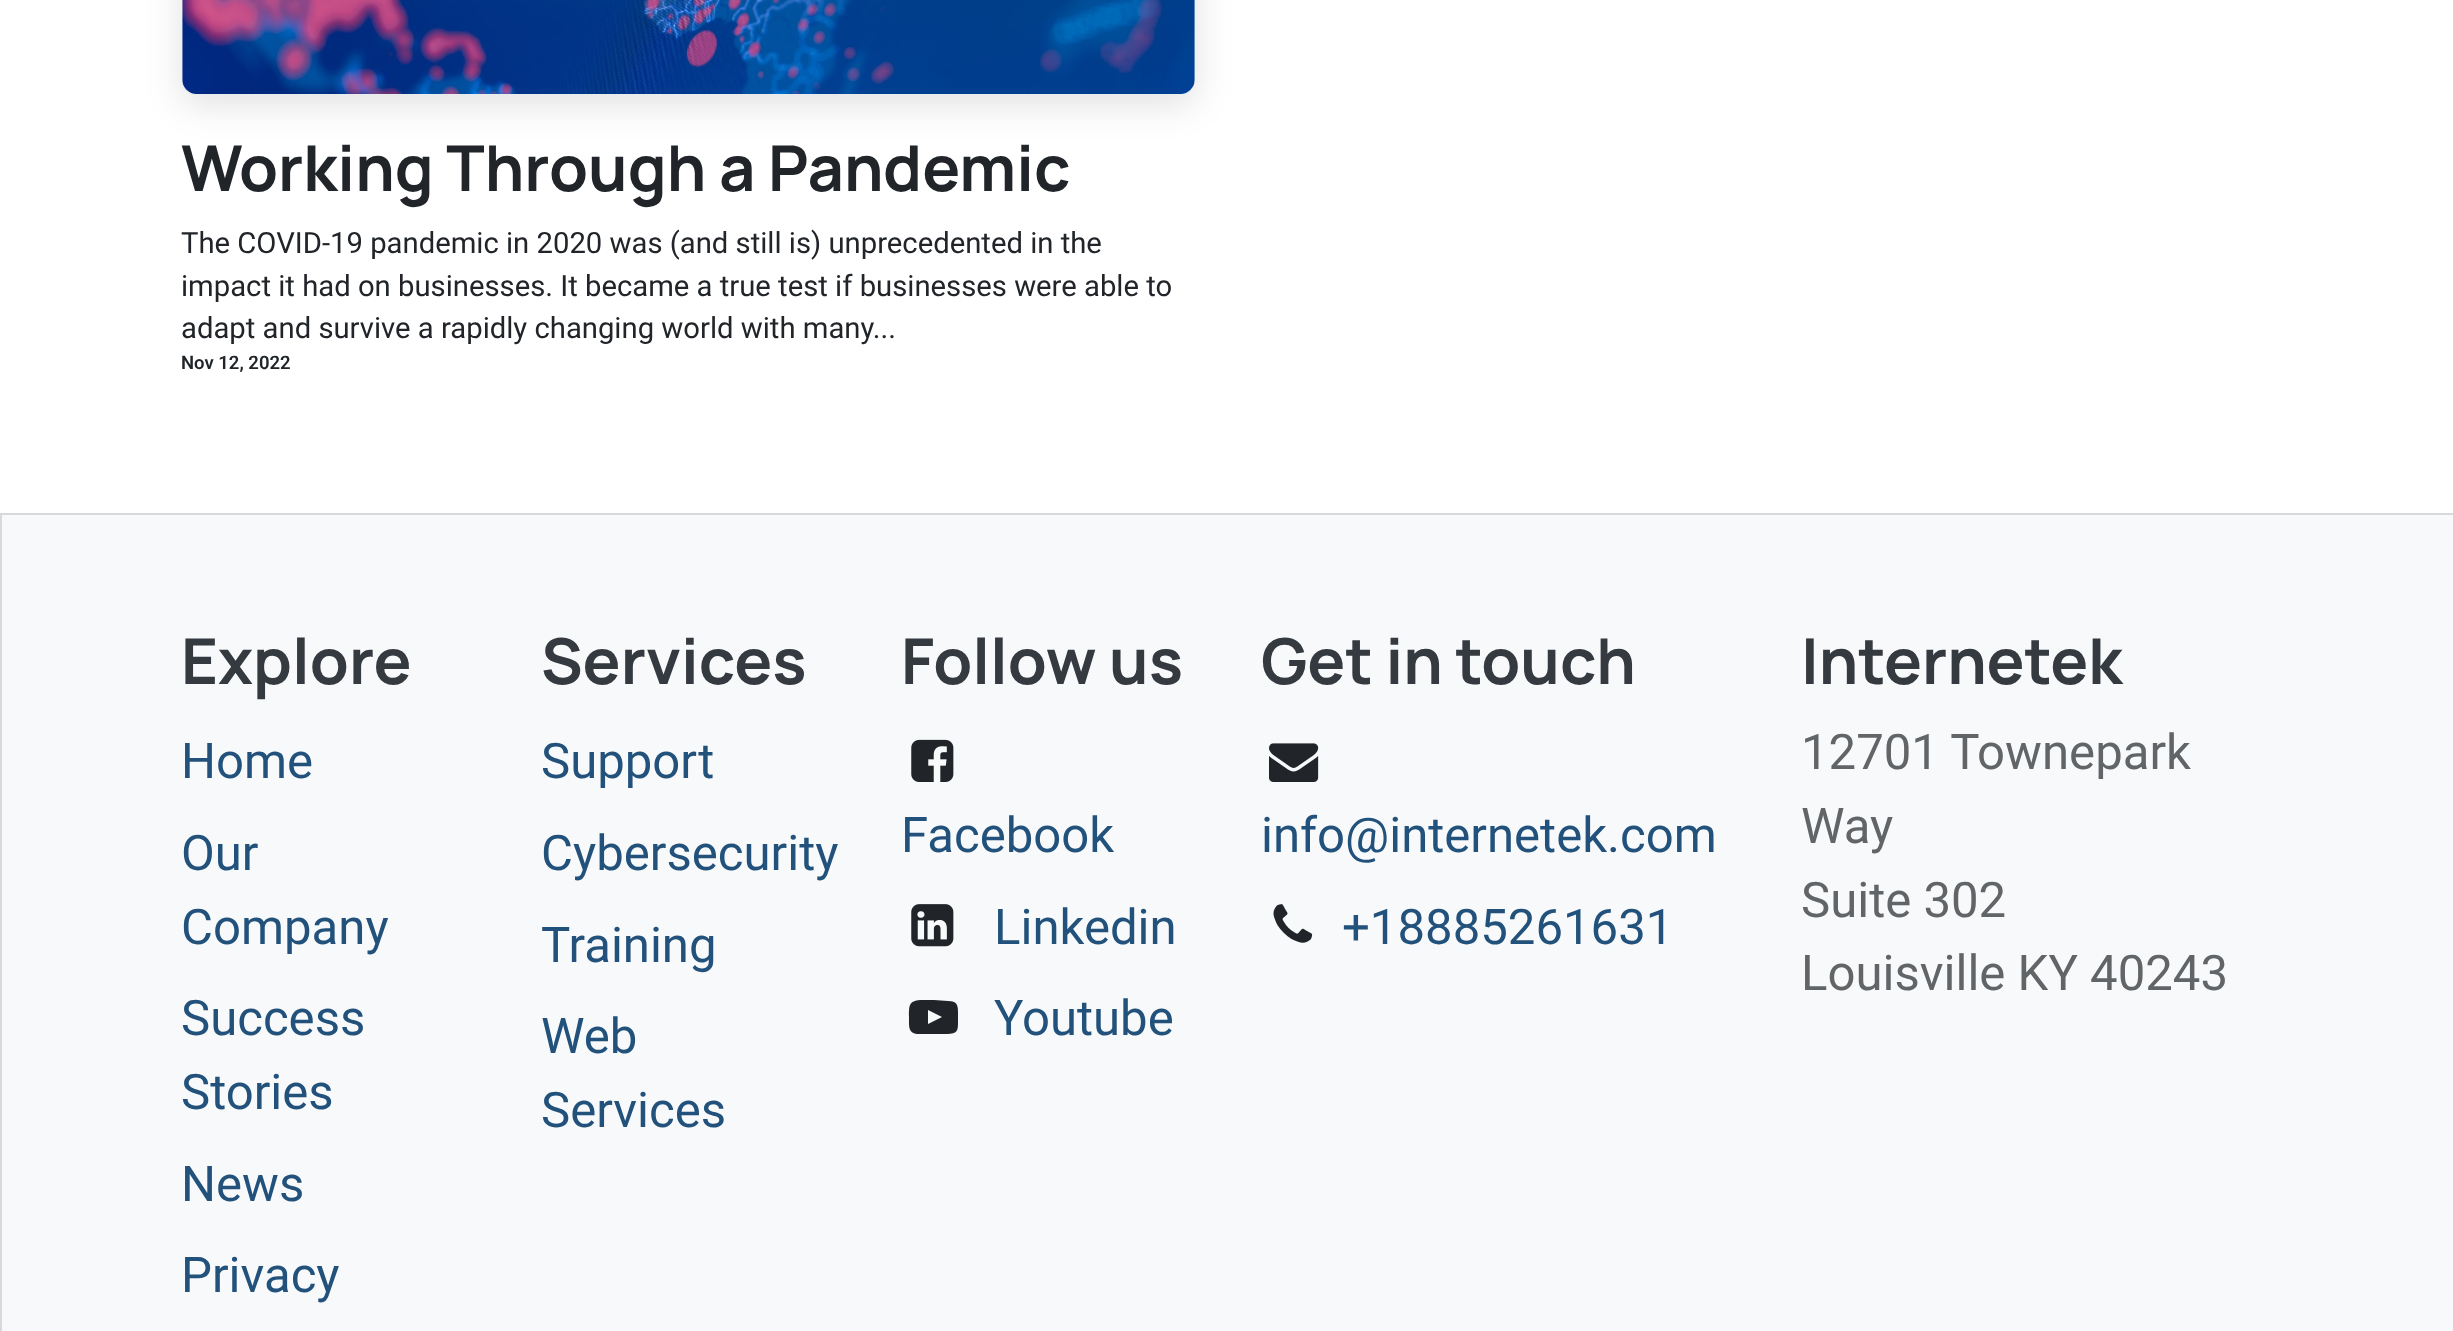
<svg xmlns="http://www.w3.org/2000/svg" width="2453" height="1331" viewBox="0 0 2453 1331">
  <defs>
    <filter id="blur1" x="-50%" y="-200%" width="200%" height="500%"><feGaussianBlur stdDeviation="18"/></filter>
  </defs>
  <rect width="100%" height="100%" fill="#ffffff"/>
  <rect x="182" y="-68" width="1013" height="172" rx="14" fill="#000000" fill-opacity="0.12" filter="url(#blur1)"/>
  <rect x="182" y="-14" width="1013" height="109" rx="14" fill="#e9ecef"/>
  <image x="182" y="0" width="1013" height="94" href="img1.png"/>
  <text x="181" y="191" font-family="Manrope" font-size="63.3" font-weight="bold" fill="#212529">Working Through a Pandemic</text>
  <text x="181" y="253" font-family="Roboto" font-size="29.25" fill="#212529">The COVID-19 pandemic in 2020 was (and still is) unprecedented in the</text>
  <text x="181" y="296" font-family="Roboto" font-size="29.25" fill="#212529">impact it had on businesses. It became a true test if businesses were able to</text>
  <text x="181" y="338" font-family="Roboto" font-size="29.25" fill="#212529">adapt and survive a rapidly changing world with many...</text>
  <text x="181" y="369" font-family="Roboto" font-size="18.5" font-weight="600" fill="#212529">Nov 12, 2022</text>
  <rect x="1" y="514" width="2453" height="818" fill="#f8f9fa" stroke="#d8d9db" stroke-width="2"/>
  <text x="181" y="684" font-family="Manrope" font-size="63.3" font-weight="bold" fill="#343a40">Explore</text>
  <text x="181" y="778" font-family="Roboto" font-size="49.1" fill="#22527b">Home</text>
  <text x="181" y="870" font-family="Roboto" font-size="49.1" fill="#22527b">Our</text>
  <text x="181" y="944" font-family="Roboto" font-size="49.1" fill="#22527b">Company</text>
  <text x="181" y="1035" font-family="Roboto" font-size="49.1" fill="#22527b">Success</text>
  <text x="181" y="1109" font-family="Roboto" font-size="49.1" fill="#22527b">Stories</text>
  <text x="181" y="1201" font-family="Roboto" font-size="49.1" fill="#22527b">News</text>
  <text x="181" y="1292" font-family="Roboto" font-size="49.1" fill="#22527b">Privacy</text>
  <text x="541" y="684" font-family="Manrope" font-size="63.3" font-weight="bold" fill="#343a40">Services</text>
  <text x="541" y="778" font-family="Roboto" font-size="49.1" fill="#22527b">Support</text>
  <text x="541" y="870" font-family="Roboto" font-size="49.1" fill="#22527b">Cybersecurity</text>
  <text x="541" y="962" font-family="Roboto" font-size="49.1" fill="#22527b">Training</text>
  <text x="541" y="1053" font-family="Roboto" font-size="49.1" fill="#22527b">Web</text>
  <text x="541" y="1127" font-family="Roboto" font-size="49.1" fill="#22527b">Services</text>
  <text x="901" y="684" font-family="Manrope" font-size="63.3" font-weight="bold" fill="#343a40">Follow us</text>
  <image x="911" y="739" width="43" height="43" href="img2.png"/>
  <text x="901" y="852" font-family="Roboto" font-size="49.1" fill="#22527b">Facebook</text>
  <image x="911" y="904" width="43" height="43" href="img3.png"/>
  <text x="994" y="944" font-family="Roboto" font-size="49.1" fill="#22527b">Linkedin</text>
  <path d="M928 1024L942 1017L928 1010ZM934 1000L948 1001C959 1001 958 1007 958 1017C958 1030 959 1034 947 1034H920C908 1034 909 1028 909 1017C909 1005 909 1001 920 1000Z" fill="#212529"/>
  <text x="994" y="1035" font-family="Roboto" font-size="49.1" fill="#22527b">Youtube</text>
  <text x="1261" y="684" font-family="Manrope" font-size="63.3" font-weight="bold" fill="#343a40">Get in touch</text>
  <image x="1269" y="743" width="50" height="39" href="img4.png"/>
  <text x="1261" y="852" font-family="Roboto" font-size="49.1" fill="#22527b">info@internetek.com</text>
  <image x="1273" y="904" width="40" height="39" href="img5.png"/>
  <text x="1342" y="944" font-family="Roboto" font-size="49.1" fill="#22527b">+18885261631</text>
  <text x="1801" y="684" font-family="Manrope" font-size="63.3" font-weight="bold" fill="#343a40">Internetek</text>
  <text x="1801" y="769" font-family="Roboto" font-size="49.1" fill="#626568">12701 Townepark</text>
  <text x="1801" y="843" font-family="Roboto" font-size="49.1" fill="#626568">Way</text>
  <text x="1801" y="917" font-family="Roboto" font-size="49.1" fill="#626568">Suite 302</text>
  <text x="1801" y="990" font-family="Roboto" font-size="49.1" fill="#626568">Louisville KY 40243</text>
</svg>
